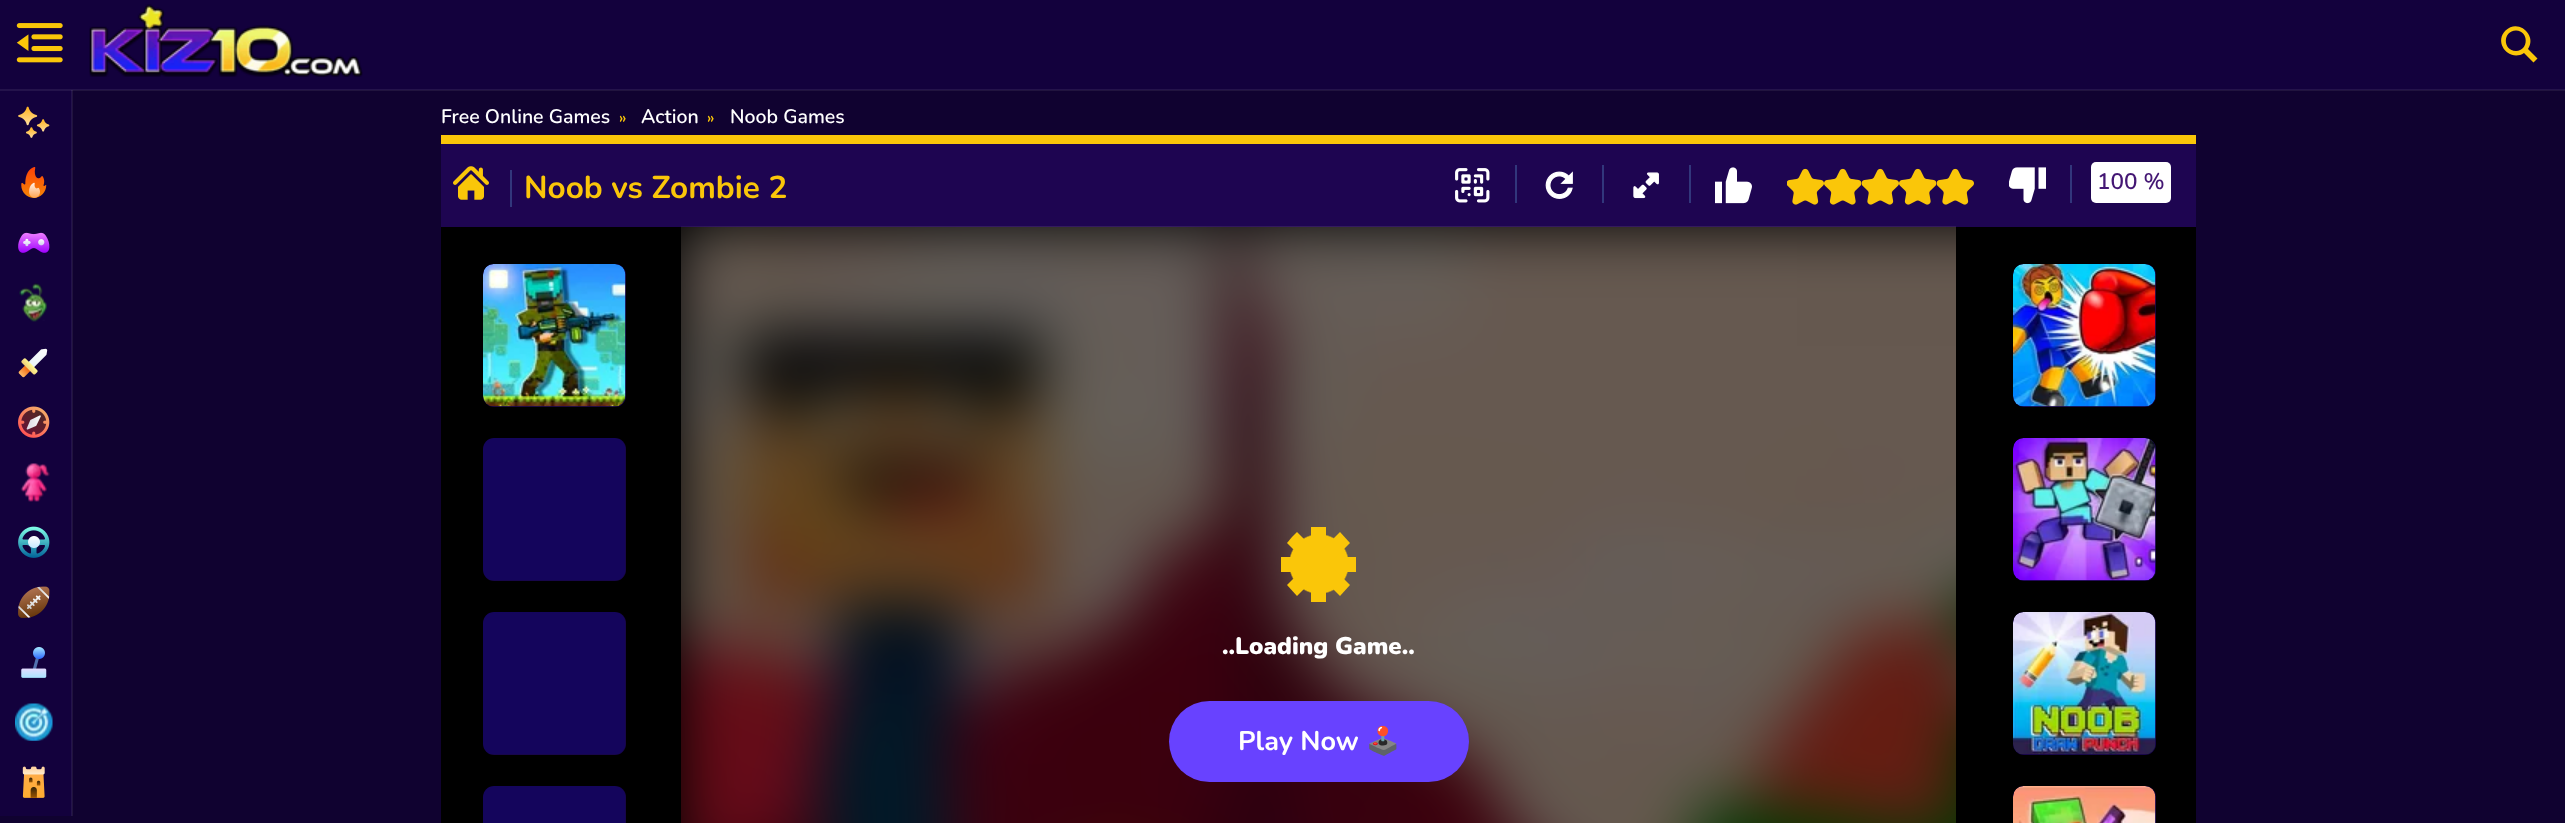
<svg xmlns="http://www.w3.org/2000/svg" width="2565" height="823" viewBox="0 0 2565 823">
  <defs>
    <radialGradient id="g1" gradientUnits="userSpaceOnUse" cx="1319" cy="564" r="38"><stop offset="0.76" stop-color="#fac609"/><stop offset="0.8" stop-color="#fac609" stop-opacity="0"/><stop offset="0.8" stop-color="#000000" stop-opacity="0"/></radialGradient>
  </defs>
  <rect width="100%" height="100%" fill="#100230"/>
  <rect x="73" y="90" width="2492" height="1" fill="#21143e"/>
  <rect x="72" y="89" width="1" height="727" fill="#21143e"/>
  <rect x="71" y="90" width="2" height="1" fill="#31244c"/>
  <rect x="0" y="0" width="2565" height="89" fill="#13013d"/>
  <rect x="0" y="90" width="72" height="1" fill="#24134b"/>
  <rect x="71" y="89" width="1" height="727" fill="#24134b"/>
  <rect x="71" y="89" width="1" height="2" fill="#332458"/>
  <rect x="0" y="89" width="2565" height="1" fill="#24134b"/>
  <image x="16" y="23" width="47" height="40" href="img1.png"/>
  <image x="89" y="4" width="274" height="73" href="img2.png"/>
  <path d="M2537.5 58.5L2528 49C2537.5 35 2518 18 2505.5 30.5C2493 43 2510 62.5 2524 53L2533.5 62.5ZM2516 51C2502.5 51 2502.5 30.5 2516 30.5C2529 30.5 2529 51 2516 51Z" fill="#fac609"/>
  <rect x="0" y="91" width="71" height="725" fill="#13013d"/>
  <image x="18" y="106" width="32" height="32" href="img3.png"/>
  <image x="21" y="167" width="26" height="31" href="img4.png"/>
  <image x="18" y="232" width="32" height="21" href="img5.png"/>
  <image x="19" y="283" width="28" height="39" href="img6.png"/>
  <image x="18" y="348" width="30" height="30" href="img7.png"/>
  <image x="18" y="406" width="32" height="32" href="img8.png"/>
  <image x="20" y="463" width="30" height="39" href="img9.png"/>
  <image x="18" y="526" width="32" height="32" href="img10.png"/>
  <image x="18" y="586" width="32" height="32" href="img11.png"/>
  <image x="21" y="647" width="26" height="31" href="img12.png"/>
  <image x="15" y="703" width="38" height="38" href="img13.png"/>
  <image x="22" y="766" width="23" height="32" href="img14.png"/>
  <text x="441" y="123" font-family="Nunito" font-size="19.5" font-weight="600" fill="#ffffff">Free Online Games</text>
  <text x="619" y="123" font-family="Nunito" font-size="16" font-weight="600" fill="#fac609">»</text>
  <text x="641" y="123" font-family="Nunito" font-size="19.5" font-weight="600" fill="#ffffff">Action</text>
  <text x="707" y="123" font-family="Nunito" font-size="16" font-weight="600" fill="#fac609">»</text>
  <text x="730" y="123" font-family="Nunito" font-size="19.5" font-weight="600" fill="#ffffff">Noob Games</text>
  <rect x="441" y="144" width="1755" height="83" fill="#1e0551"/>
  <rect x="441" y="135" width="1755" height="9" fill="#fac609"/>
  <image x="453" y="166" width="36" height="34" href="img15.png"/>
  <rect x="510" y="170" width="2" height="37" fill="#32377c"/>
  <text x="524" y="198" font-family="Nunito" font-size="31.5" font-weight="bold" fill="#fac609">Noob vs Zombie 2</text>
  <image x="1455" y="168" width="35" height="35" href="img16.png"/>
  <rect x="1515" y="165" width="2" height="38" fill="#32377c"/>
  <image x="1545" y="171" width="28" height="28" href="img17.png"/>
  <rect x="1602" y="165" width="2" height="38" fill="#32377c"/>
  <image x="1633" y="172" width="26" height="27" href="img18.png"/>
  <rect x="1689" y="165" width="2" height="38" fill="#32377c"/>
  <image x="1715" y="167" width="37" height="37" href="img19.png"/>
  <image x="1787" y="168" width="37" height="37" href="img20.png"/>
  <image x="1824" y="168" width="38" height="37" href="img21.png"/>
  <image x="1862" y="168" width="37" height="37" href="img20.png"/>
  <image x="1899" y="168" width="38" height="37" href="img21.png"/>
  <image x="1937" y="168" width="37" height="37" href="img20.png"/>
  <image x="2009" y="167" width="37" height="37" href="img22.png"/>
  <rect x="2070" y="165" width="2" height="38" fill="#32377c"/>
  <rect x="2091" y="162" width="80" height="41" rx="5" fill="#ffffff"/>
  <text x="2097" y="189" font-family="Nunito" font-size="22.5" font-weight="600" fill="#441774">100 %</text>
  <rect x="441" y="227" width="1755" height="596" fill="#000000"/>
  <rect x="483" y="264" width="143" height="143" rx="11" fill="#17064b"/>
  <image x="483" y="264" width="143" height="143" href="img23.png"/>
  <rect x="483" y="438" width="143" height="143" rx="11" fill="#17064b"/>
  <image x="483" y="438" width="142" height="142" href="img24.png"/>
  <rect x="483" y="612" width="143" height="143" rx="11" fill="#17064b"/>
  <image x="483" y="612" width="142" height="142" href="img24.png"/>
  <rect x="483" y="786" width="143" height="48" rx="11" fill="#17064b"/>
  <image x="483" y="786" width="142" height="37" href="img25.png"/>
  <image x="681" y="226" width="1275" height="597" href="img26.png"/>
  <rect x="1290" y="535" width="58" height="58" fill="url(#g1)"/>
  <rect x="1311" y="527" width="15" height="75" fill="#fac609"/>
  <rect x="1281" y="557" width="75" height="15" fill="#fac609"/>
  <path d="M1297 596L1287 585L1340 532L1350 543Z" fill="#fac609"/>
  <path d="M1292 537L1297 532L1350 585L1340 596L1287 543Z" fill="#fac609"/>
  <text x="1222" y="654" font-family="Nunito" font-size="24" font-weight="900" fill="#ffffff">..Loading Game..</text>
  <rect x="1169" y="701" width="300" height="81" rx="40.5" fill="#6842ff"/>
  <text x="1238" y="750" font-family="Nunito" font-size="27" font-weight="bold" fill="#ffffff">Play Now</text>
  <text x="1366" y="750" font-family="Noto Color Emoji" font-size="27" font-weight="bold" fill="#ffffff">🕹️</text>
  <rect x="2013" y="264" width="143" height="143" rx="11" fill="#17064b"/>
  <image x="2013" y="264" width="143" height="143" href="img27.png"/>
  <rect x="2013" y="438" width="143" height="143" rx="11" fill="#17064b"/>
  <image x="2013" y="438" width="143" height="143" href="img28.png"/>
  <rect x="2013" y="612" width="143" height="143" rx="11" fill="#17064b"/>
  <image x="2013" y="612" width="143" height="143" href="img29.png"/>
  <rect x="2013" y="786" width="143" height="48" rx="11" fill="#17064b"/>
  <image x="2013" y="786" width="143" height="37" href="img30.png"/>
</svg>
